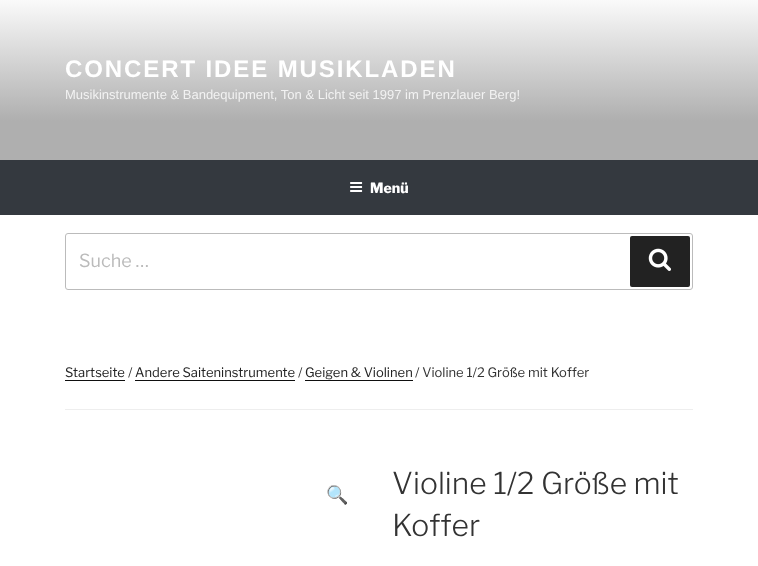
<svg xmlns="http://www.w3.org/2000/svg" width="758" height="566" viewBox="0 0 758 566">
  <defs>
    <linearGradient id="g1" gradientUnits="userSpaceOnUse" x1="379" y1="0" x2="379" y2="161"><stop offset="0" stop-color="#fafafa"/><stop offset="0.75" stop-color="#afafaf"/><stop offset="1" stop-color="#afafaf"/></linearGradient>
  </defs>
  <rect width="100%" height="100%" fill="#ffffff"/>
  <rect x="0" y="0" width="758" height="160" fill="url(#g1)"/>
  <text x="65" y="77" font-family="Liberation Sans" font-size="24" font-weight="bold" letter-spacing="1.9" fill="#ffffff">CONCERT IDEE MUSIKLADEN</text>
  <text x="65" y="99" font-family="Liberation Sans" font-size="13" fill="#f2f2f2">Musikinstrumente &amp; Bandequipment, Ton &amp; Licht seit 1997 im Prenzlauer Berg!</text>
  <rect x="0" y="160" width="758" height="55" fill="#34393f"/>
  <image x="350" y="182" width="13" height="10" href="img1.png"/>
  <text x="370" y="193" font-family="Libre Franklin" font-size="14" font-weight="800" fill="#ffffff">Menü</text>
  <rect x="65.5" y="233.5" width="627" height="56" rx="2.5" fill="none" stroke="#bbbbbb"/>
  <text x="79" y="267" font-family="Libre Franklin" font-size="18" fill="#bbbbbb">Suche …</text>
  <rect x="630" y="236" width="60" height="51" rx="2" fill="#222222"/>
  <image x="648" y="248" width="23" height="23" href="img2.png"/>
  <rect x="65" y="409" width="628" height="1" fill="#eeeeee"/>
  <text x="65" y="377" font-family="Libre Franklin" font-size="13" fill="#222222">Startseite</text>
  <rect x="65" y="380" width="60" height="1" fill="#0f0f0f"/>
  <text x="128" y="377" font-family="Libre Franklin" font-size="13" fill="#333333">/</text>
  <text x="135" y="377" font-family="Libre Franklin" font-size="13" fill="#222222">Andere Saiteninstrumente</text>
  <rect x="135" y="380" width="160" height="1" fill="#0f0f0f"/>
  <text x="298" y="377" font-family="Libre Franklin" font-size="13" fill="#333333">/</text>
  <text x="305" y="377" font-family="Libre Franklin" font-size="13" fill="#222222">Geigen &amp; Violinen</text>
  <rect x="305" y="380" width="108" height="1" fill="#0f0f0f"/>
  <text x="415" y="377" font-family="Libre Franklin" font-size="13" fill="#333333">/ Violine 1/2 Größe mit Koffer</text>
  <text x="326" y="501" font-family="Noto Color Emoji" font-size="18" fill="#222222">🔍</text>
  <text x="392" y="494" font-family="Libre Franklin" font-size="30" font-weight="300" fill="#333333">Violine 1/2 Größe mit</text>
  <text x="392" y="536" font-family="Libre Franklin" font-size="30" font-weight="300" fill="#333333">Koffer</text>
</svg>
